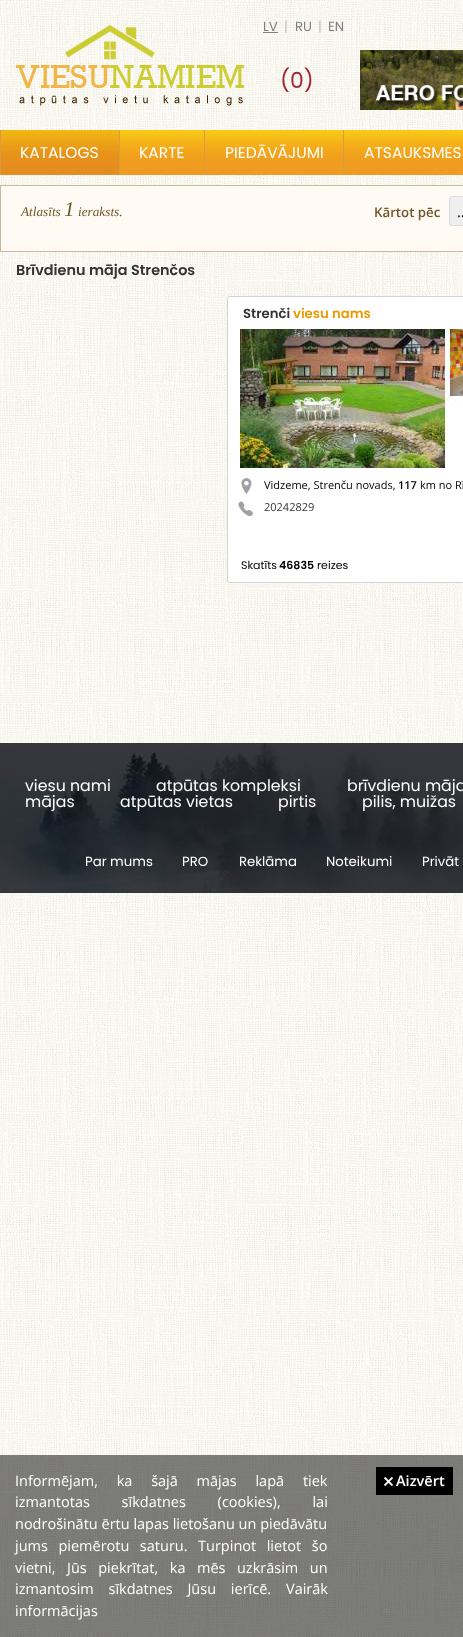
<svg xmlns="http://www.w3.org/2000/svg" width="463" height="1637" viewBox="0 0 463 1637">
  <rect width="100%" height="100%" fill="#ffffff"/>
  <image x="0" y="0" width="463" height="1637" href="img1.png"/>
  <image x="15" y="25" width="229" height="81" href="img2.png"/>
  <text x="263" y="31" font-family="Poppins" font-size="13.25" fill="#808080">LV</text>
  <rect x="263" y="32" width="15" height="1" fill="#808080"/>
  <text x="284" y="31" font-family="Poppins" font-size="13.25" fill="#c0c0c0">|</text>
  <text x="295" y="31" font-family="Poppins" font-size="13.25" fill="#808080">RU</text>
  <text x="318" y="31" font-family="Poppins" font-size="13.25" fill="#c0c0c0">|</text>
  <text x="328" y="31" font-family="Poppins" font-size="13.25" fill="#808080">EN</text>
  <image x="360" y="50" width="103" height="60" href="img3.png"/>
  <text x="280" y="88" font-family="Poppins" font-size="22" fill="#a02932">(0)</text>
  <image x="120" y="130" width="343" height="45" href="img4.png"/>
  <image x="1" y="130" width="118" height="45" href="img5.png"/>
  <rect x="0" y="130" width="1" height="45" fill="#dc9a44"/>
  <text x="20" y="158" font-family="Poppins" font-size="15.5" fill="#ffffff">KATALOGS</text>
  <rect x="119" y="130" width="1" height="45" fill="#dc9a44"/>
  <text x="139" y="158" font-family="Poppins" font-size="15.5" fill="#ffffff">KARTE</text>
  <rect x="204" y="130" width="1" height="45" fill="#dc9a44"/>
  <text x="225" y="158" font-family="Poppins" font-size="15.5" fill="#ffffff">PIEDĀVĀJUMI</text>
  <rect x="343" y="130" width="1" height="45" fill="#dc9a44"/>
  <text x="364" y="158" font-family="Poppins" font-size="15.5" fill="#ffffff">ATSAUKSMES</text>
  <rect x="0.5" y="185.5" width="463" height="66" fill="#fffaf3" stroke="#c9ba9b"/>
  <text x="21" y="216" font-family="Liberation Serif" font-size="13.25" font-style="italic" fill="#70572b">Atlasīts</text>
  <text x="64" y="216" font-family="Liberation Serif" font-size="21" font-style="italic" fill="#70572b">1</text>
  <text x="78" y="216" font-family="Liberation Serif" font-size="13.25" font-style="italic" fill="#70572b">ieraksts.</text>
  <text x="374" y="217" font-family="Open Sans" font-size="13.25" font-weight="600" fill="#70572b">Kārtot pēc</text>
  <rect x="449.5" y="196.5" width="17" height="29" rx="2.5" fill="#efefef" stroke="#dcdcdc"/>
  <text x="457" y="217" font-family="Open Sans" font-size="14.5" fill="#000000">..</text>
  <text x="16" y="275" font-family="Poppins" font-size="14.4" font-weight="600" fill="#333333">Brīvdienu māja Strenčos</text>
  <rect x="227.5" y="296.5" width="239" height="286" rx="2.5" fill="#ffffff" stroke="#d3d3d3"/>
  <text x="243" y="318" font-family="Poppins" font-size="13.25" font-weight="600" fill="#333333">Strenči</text>
  <text x="293" y="318" font-family="Poppins" font-size="13.25" font-weight="600" fill="#ec9900">viesu nams</text>
  <image x="240" y="329" width="223" height="139" href="img6.png"/>
  <image x="241" y="478" width="11" height="16" href="img7.png"/>
  <text x="264" y="489" font-family="Open Sans" font-size="11" fill="#000000">Vidzeme, Strenču novads,</text>
  <text x="398" y="489" font-family="Open Sans" font-size="11" font-weight="600" fill="#000000">117</text>
  <text x="420" y="489" font-family="Open Sans" font-size="11" fill="#000000">km no Rī</text>
  <image x="238" y="501" width="16" height="15" href="img8.png"/>
  <text x="264" y="511" font-family="Open Sans" font-size="11" fill="#333333">20242829</text>
  <text x="241" y="569" font-family="Poppins" font-size="11" fill="#000000">Skatīts</text>
  <text x="279" y="569" font-family="Poppins" font-size="11" font-weight="600" fill="#000000">46835</text>
  <text x="317" y="569" font-family="Poppins" font-size="11" fill="#000000">reizes</text>
  <image x="0" y="743" width="463" height="150" href="img9.png"/>
  <text x="25" y="791" font-family="Poppins" font-size="15.75" fill="#ffffff">viesu nami</text>
  <text x="156" y="791" font-family="Poppins" font-size="15.75" fill="#ffffff">atpūtas kompleksi</text>
  <text x="347" y="791" font-family="Poppins" font-size="15.75" fill="#ffffff">brīvdienu māja</text>
  <text x="25" y="807" font-family="Poppins" font-size="15.75" fill="#ffffff">mājas</text>
  <text x="120" y="807" font-family="Poppins" font-size="15.75" fill="#ffffff">atpūtas vietas</text>
  <text x="278" y="807" font-family="Poppins" font-size="15.75" fill="#ffffff">pirtis</text>
  <text x="362" y="807" font-family="Poppins" font-size="15.75" fill="#ffffff">pilis, muižas</text>
  <text x="85" y="866" font-family="Poppins" font-size="13.25" fill="#ffffff">Par mums</text>
  <text x="182" y="866" font-family="Poppins" font-size="13.25" fill="#ffffff">PRO</text>
  <text x="239" y="866" font-family="Poppins" font-size="13.25" fill="#ffffff">Reklāma</text>
  <text x="326" y="866" font-family="Poppins" font-size="13.25" fill="#ffffff">Noteikumi</text>
  <text x="422" y="866" font-family="Poppins" font-size="13.25" fill="#ffffff">Privāt</text>
  <rect x="0" y="1455" width="463" height="182" fill="#000000" fill-opacity="0.5"/>
  <text x="15" y="1486" word-spacing="15" font-family="Open Sans" font-size="14.5" fill="#ffffff">Informējam, ka šajā mājas lapā tiek</text>
  <text x="15" y="1507" word-spacing="28" font-family="Open Sans" font-size="14.5" fill="#ffffff">izmantotas sīkdatnes (cookies), lai</text>
  <text x="15" y="1529" font-family="Open Sans" font-size="14.5" fill="#ffffff">nodrošinātu ērtu lapas lietošanu un piedāvātu</text>
  <text x="15" y="1551" word-spacing="6.75" font-family="Open Sans" font-size="14.5" fill="#ffffff">jums piemērotu saturu. Turpinot lietot šo</text>
  <text x="15" y="1573" word-spacing="7.75" font-family="Open Sans" font-size="14.5" fill="#ffffff">vietni, Jūs piekrītat, ka mēs uzkrāsim un</text>
  <text x="15" y="1594" word-spacing="11" font-family="Open Sans" font-size="14.5" fill="#ffffff">izmantosim sīkdatnes Jūsu ierīcē.</text>
  <text x="286" y="1594" font-family="Open Sans" font-size="14.5" fill="#ffffff">Vairāk</text>
  <text x="15" y="1616" font-family="Open Sans" font-size="14.5" fill="#ffffff">informācijas</text>
  <rect x="376" y="1467" width="77" height="28" fill="#000000"/>
  <image x="384" y="1477" width="9" height="9" href="img10.png"/>
  <text x="396" y="1486" font-family="Open Sans" font-size="14.5" font-weight="600" fill="#ffffff">Aizvērt</text>
</svg>
